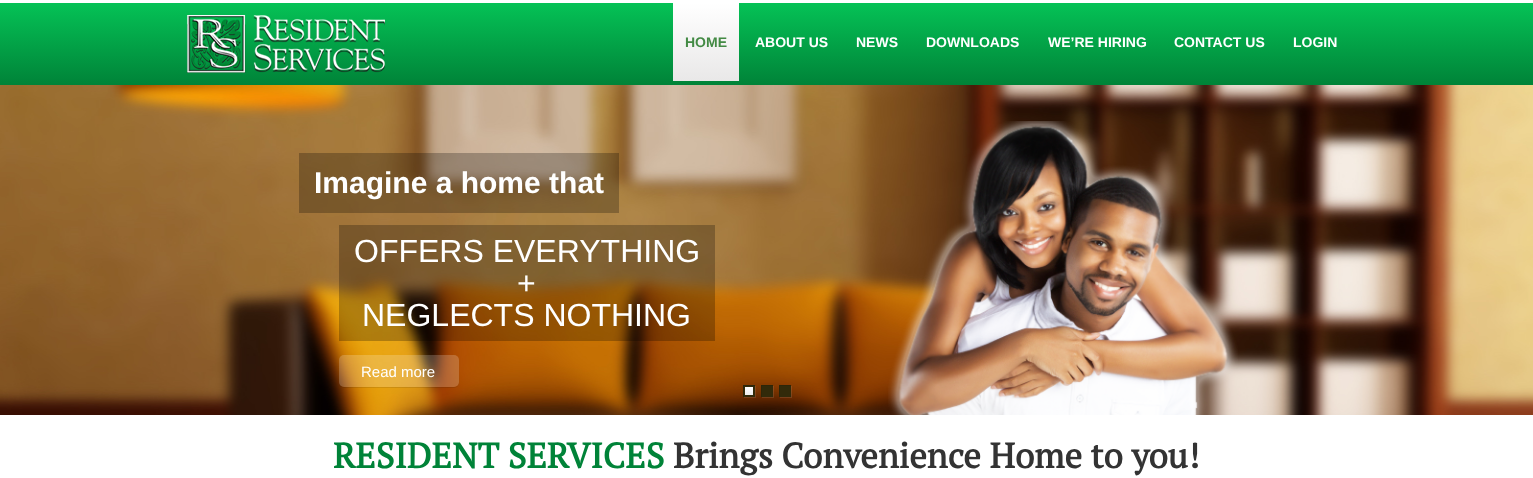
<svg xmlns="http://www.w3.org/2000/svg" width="1533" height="478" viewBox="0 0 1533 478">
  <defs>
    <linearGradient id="g1" gradientUnits="userSpaceOnUse" x1="767" y1="3" x2="767" y2="85"><stop offset="0" stop-color="#05c256"/><stop offset="1" stop-color="#008338"/></linearGradient>
    <linearGradient id="g2" gradientUnits="userSpaceOnUse" x1="706" y1="3" x2="706" y2="81"><stop offset="0" stop-color="#ffffff"/><stop offset="1" stop-color="#e9e8e8"/></linearGradient>
    <clipPath id="clip1"><path d="M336 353H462V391H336ZM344 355H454C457 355 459 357 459 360V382C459 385 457 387 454 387H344C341 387 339 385 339 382V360C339 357 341 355 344 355Z" clip-rule="evenodd"/></clipPath>
    <filter id="blur1" x="-50%" y="-200%" width="200%" height="500%"><feGaussianBlur stdDeviation="0.5"/></filter>
    <clipPath id="clip2"><rect x="743" y="385" width="12" height="12"/></clipPath>
    <linearGradient id="g3" gradientUnits="userSpaceOnUse" x1="749" y1="387" x2="749" y2="395"><stop offset="0" stop-color="#ffffff"/><stop offset="0.47" stop-color="#f6f6f6"/><stop offset="1" stop-color="#ededed"/></linearGradient>
    <clipPath id="clip3"><rect x="761" y="385" width="12" height="12"/></clipPath>
    <clipPath id="clip4"><rect x="779" y="385" width="12" height="12"/></clipPath>
  </defs>
  <rect width="100%" height="100%" fill="#ffffff"/>
  <rect x="0" y="3" width="1533" height="82" fill="url(#g1)"/>
  <image x="186" y="15" width="199" height="58" href="img1.png"/>
  <rect x="673" y="3" width="66" height="78" fill="url(#g2)"/>
  <text x="685" y="47" font-family="Liberation Sans" font-size="14" font-weight="bold" fill="#438a44">HOME</text>
  <text x="755" y="47" font-family="Liberation Sans" font-size="14" font-weight="bold" fill="#ffffff">ABOUT US</text>
  <text x="856" y="47" font-family="Liberation Sans" font-size="14" font-weight="bold" fill="#ffffff">NEWS</text>
  <text x="926" y="47" font-family="Liberation Sans" font-size="14" font-weight="bold" fill="#ffffff">DOWNLOADS</text>
  <text x="1048" y="47" font-family="Liberation Sans" font-size="14" font-weight="bold" fill="#ffffff">WE’RE HIRING</text>
  <text x="1174" y="47" font-family="Liberation Sans" font-size="14" font-weight="bold" fill="#ffffff">CONTACT US</text>
  <text x="1293" y="47" font-family="Liberation Sans" font-size="14" font-weight="bold" fill="#ffffff">LOGIN</text>
  <image x="0" y="85" width="1533" height="330" href="img2.png"/>
  <rect x="299" y="153" width="320" height="60" fill="#000000" fill-opacity="0.25"/>
  <text x="314" y="193" font-family="Liberation Sans" font-size="30" font-weight="bold" fill="#ffffff">Imagine a home that</text>
  <image x="888" y="121" width="350" height="294" href="img3.png"/>
  <rect x="339" y="225" width="376" height="116" fill="#000000" fill-opacity="0.25"/>
  <text x="354" y="262" font-family="Liberation Sans" font-size="32" fill="#ffffff">OFFERS EVERYTHING</text>
  <text x="517" y="294" font-family="Liberation Sans" font-size="32" fill="#ffffff">+</text>
  <text x="362" y="326" font-family="Liberation Sans" font-size="32" fill="#ffffff">NEGLECTS NOTHING</text>
  <g clip-path="url(#clip1)">
    <rect x="339" y="356" width="120" height="32" rx="5" fill="#000000" fill-opacity="0.1" filter="url(#blur1)"/>
  </g>
  <rect x="339" y="355" width="120" height="32" rx="5" fill="#ffffff" fill-opacity="0.2"/>
  <text x="361" y="377" font-family="Liberation Sans" font-size="15" fill="#ffffff">Read more</text>
  <rect x="744" y="386" width="12" height="12" fill="#ffffff" fill-opacity="0.1" filter="url(#blur1)"/>
  <rect x="744" y="386" width="11" height="11" fill="#322a0a"/>
  <g clip-path="url(#clip2)">
    <path d="M644 286H854V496H644ZM744 386H756V398H744Z" fill="#2d2609" fill-rule="evenodd"/>
  </g>
  <rect x="745" y="387" width="8" height="8" fill="url(#g3)"/>
  <rect x="762" y="386" width="12" height="12" fill="#ffffff" fill-opacity="0.1" filter="url(#blur1)"/>
  <rect x="762" y="386" width="11" height="11" fill="#322a0a"/>
  <g clip-path="url(#clip3)">
    <path d="M662 286H872V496H662ZM762 386H774V398H762Z" fill="#2d2609" fill-rule="evenodd"/>
  </g>
  <rect x="780" y="386" width="12" height="12" fill="#ffffff" fill-opacity="0.1" filter="url(#blur1)"/>
  <rect x="780" y="386" width="11" height="11" fill="#322a0a"/>
  <g clip-path="url(#clip4)">
    <path d="M680 286H890V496H680ZM780 386H792V398H780Z" fill="#2d2609" fill-rule="evenodd"/>
  </g>
  <text x="333" y="468" font-family="PT Serif" font-size="35" font-weight="bold" fill="#008338">RESIDENT SERVICES</text>
  <text x="673" y="468" font-family="PT Serif" font-size="35" font-weight="bold" fill="#333333">Brings Convenience Home to you!</text>
</svg>
